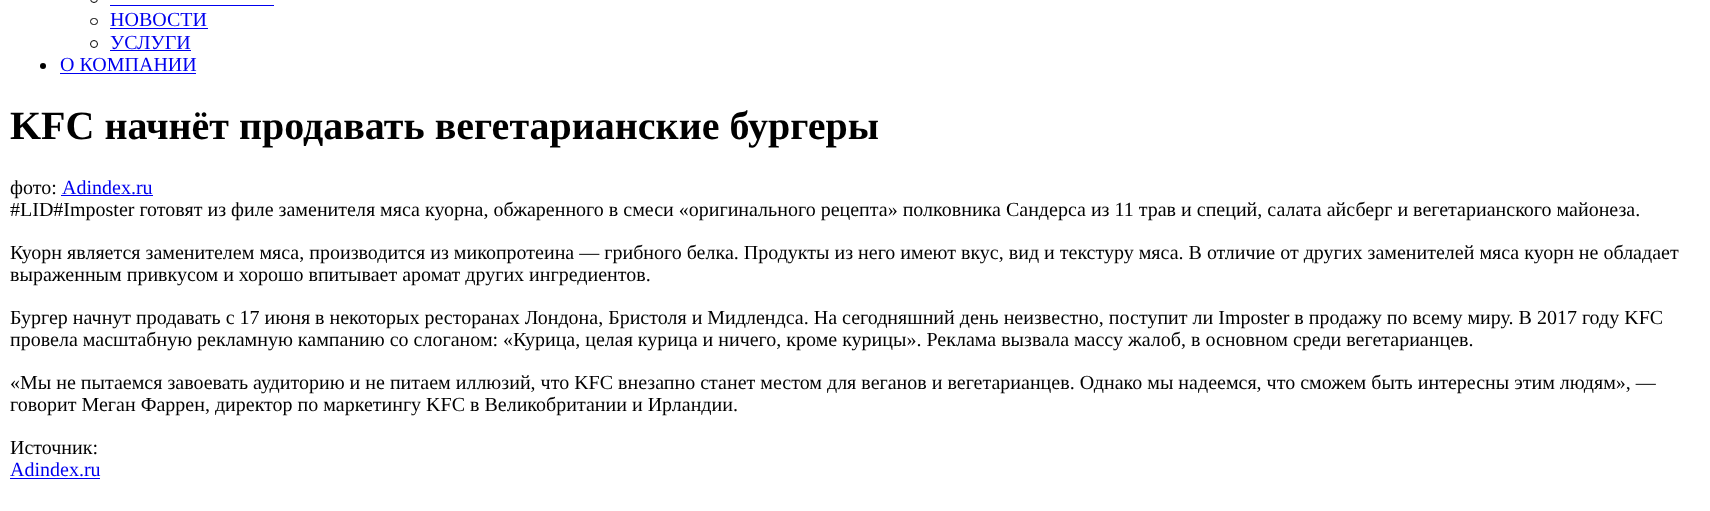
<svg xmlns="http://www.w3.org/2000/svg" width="1710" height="511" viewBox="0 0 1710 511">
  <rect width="100%" height="100%" fill="#ffffff"/>
  <circle cx="94" cy="-1" r="3.5" fill="none" stroke="#000000"/>
  <rect x="110" y="5" width="164" height="1" fill="#0000ee"/>
  <rect x="90.5" y="18.5" width="7" height="6" rx="3" fill="none" stroke="#000000"/>
  <text x="110" y="26" font-family="Liberation Serif" font-size="20" fill="#0000ee">НОВОСТИ</text>
  <rect x="110" y="28" width="98" height="1" fill="#0000ee"/>
  <circle cx="94" cy="44" r="3.5" fill="none" stroke="#000000"/>
  <text x="110" y="49" font-family="Liberation Serif" font-size="20" fill="#0000ee">УСЛУГИ</text>
  <rect x="110" y="50" width="81" height="1" fill="#0000ee"/>
  <circle cx="43" cy="66" r="3" fill="#000000"/>
  <text x="60" y="71" font-family="Liberation Serif" font-size="20" fill="#0000ee">О КОМПАНИИ</text>
  <rect x="60" y="73" width="136" height="1" fill="#0000ee"/>
  <text x="10" y="139" font-family="Liberation Serif" font-size="40" font-weight="bold" fill="#000000">KFC начнёт продавать вегетарианские бургеры</text>
  <text x="10" y="194" font-family="Liberation Serif" font-size="20" fill="#000000">фото:</text>
  <text x="62" y="194" font-family="Liberation Serif" font-size="20" fill="#0000ee">Adindex.ru</text>
  <rect x="61" y="195" width="92" height="1" fill="#0000ee"/>
  <text x="10" y="216" font-family="Liberation Serif" font-size="20" fill="#000000">#LID#Imposter готовят из филе заменителя мяса куорна, обжаренного в смеси «оригинального рецепта» полковника Сандерса из 11 трав и специй, салата айсберг и вегетарианского майонеза.</text>
  <text x="10" y="259" font-family="Liberation Serif" font-size="20" fill="#000000">Куорн является заменителем мяса, производится из микопротеина — грибного белка. Продукты из него имеют вкус, вид и текстуру мяса. В отличие от других заменителей мяса куорн не обладает</text>
  <text x="10" y="281" font-family="Liberation Serif" font-size="20" fill="#000000">выраженным привкусом и хорошо впитывает аромат других ингредиентов.</text>
  <text x="10" y="324" font-family="Liberation Serif" font-size="20" fill="#000000">Бургер начнут продавать с 17 июня в некоторых ресторанах Лондона, Бристоля и Мидлендса. На сегодняшний день неизвестно, поступит ли Imposter в продажу по всему миру. В 2017 году KFC</text>
  <text x="10" y="346" font-family="Liberation Serif" font-size="20" fill="#000000">провела масштабную рекламную кампанию со слоганом: «Курица, целая курица и ничего, кроме курицы». Реклама вызвала массу жалоб, в основном среди вегетарианцев.</text>
  <text x="10" y="389" font-family="Liberation Serif" font-size="20" fill="#000000">«Мы не пытаемся завоевать аудиторию и не питаем иллюзий, что KFC внезапно станет местом для веганов и вегетарианцев. Однако мы надеемся, что сможем быть интересны этим людям», —</text>
  <text x="10" y="411" font-family="Liberation Serif" font-size="20" fill="#000000">говорит Меган Фаррен, директор по маркетингу KFC в Великобритании и Ирландии.</text>
  <text x="10" y="454" font-family="Liberation Serif" font-size="20" fill="#000000">Источник:</text>
  <text x="10" y="476" font-family="Liberation Serif" font-size="20" fill="#0000ee">Adindex.ru</text>
  <rect x="10" y="478" width="90" height="1" fill="#0000ee"/>
</svg>
